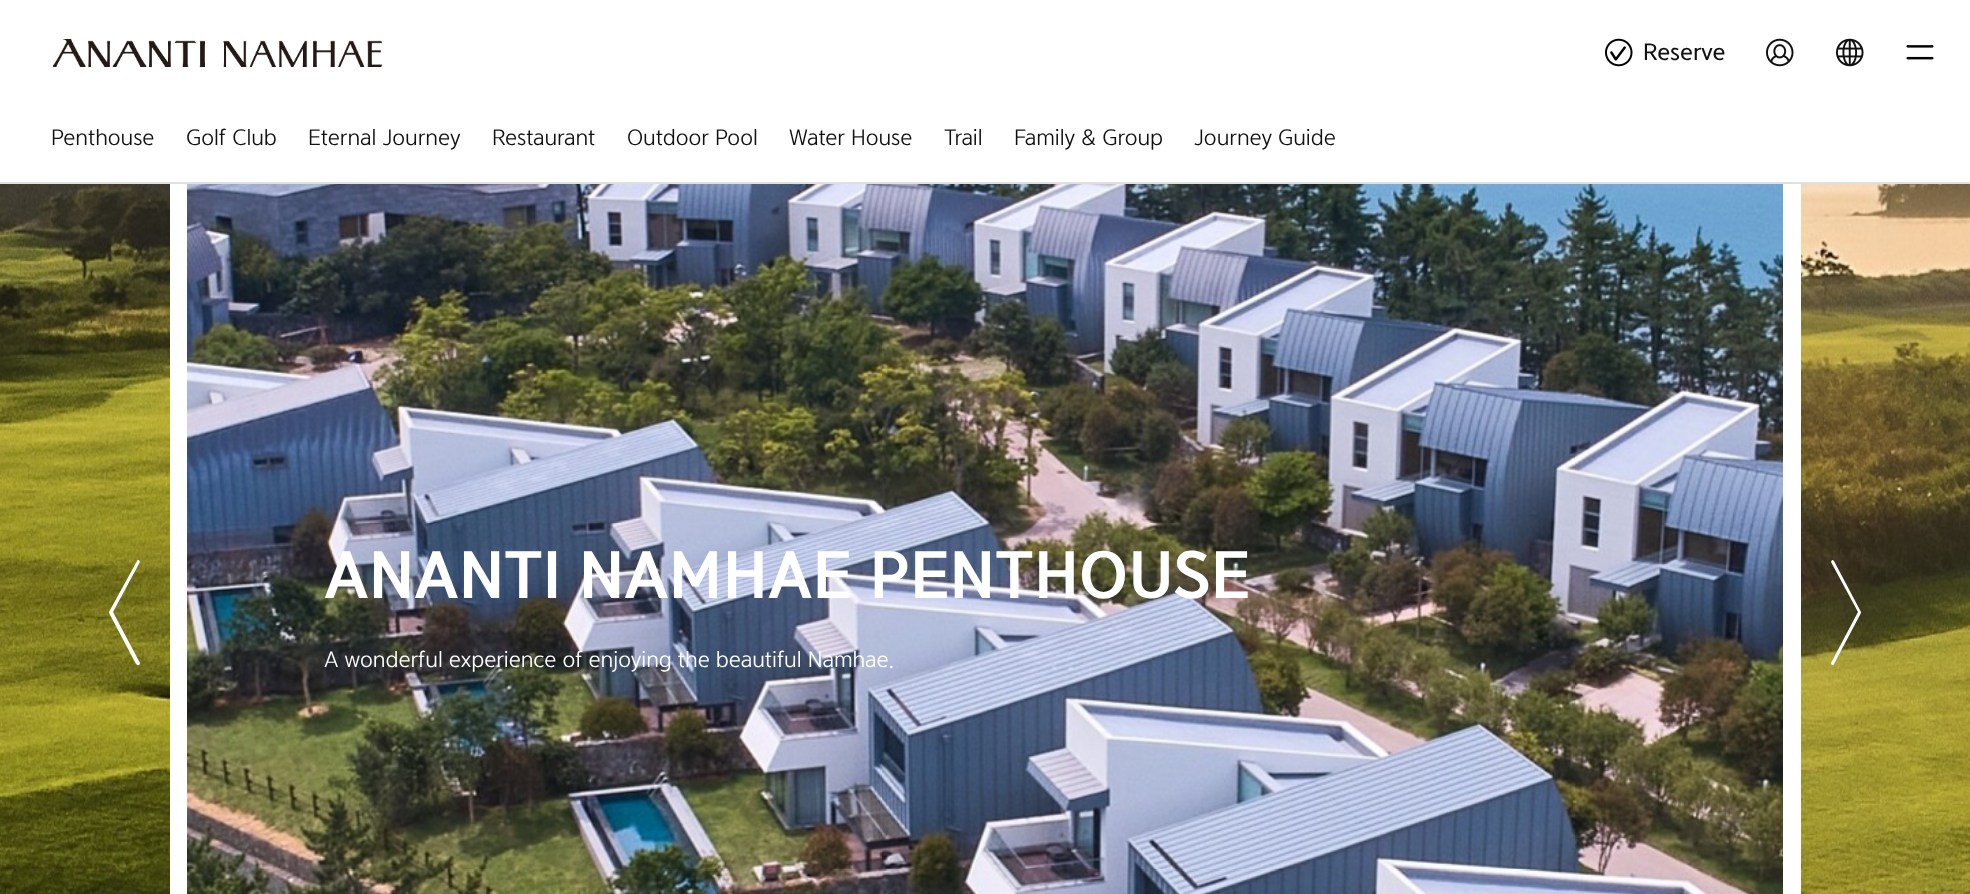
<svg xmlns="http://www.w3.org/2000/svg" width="1970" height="894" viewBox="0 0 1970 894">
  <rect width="100%" height="100%" fill="#ffffff"/>
  <rect x="0" y="182" width="1970" height="2" fill="#dfdfdf"/>
  <image x="53" y="39" width="330" height="28" href="img1.png"/>
  <image x="1605" y="38" width="28" height="29" href="img2.png"/>
  <text x="1643" y="60" font-family="'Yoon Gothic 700'" font-size="21" font-weight="500" fill="#111111">Reserve</text>
  <image x="1766" y="38" width="28" height="29" href="img3.png"/>
  <image x="1836" y="38" width="28" height="29" href="img4.png"/>
  <image x="1906" y="45" width="28" height="15" href="img5.png"/>
  <text x="51" y="145" font-family="'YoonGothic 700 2'" font-size="21" fill="#111111">Penthouse</text>
  <text x="186" y="145" font-family="'YoonGothic 700 2'" font-size="21" fill="#111111">Golf Club</text>
  <text x="308" y="145" font-family="'YoonGothic 700 2'" font-size="21" fill="#111111">Eternal Journey</text>
  <text x="492" y="145" font-family="'YoonGothic 700 2'" font-size="21" fill="#111111">Restaurant</text>
  <text x="627" y="145" font-family="'YoonGothic 700 2'" font-size="21" fill="#111111">Outdoor Pool</text>
  <text x="789" y="145" font-family="'YoonGothic 700 2'" font-size="21" fill="#111111">Water House</text>
  <text x="944" y="145" font-family="'YoonGothic 700 2'" font-size="21" fill="#111111">Trail</text>
  <text x="1014" y="145" font-family="'YoonGothic 700 2'" font-size="21" fill="#111111">Family &amp; Group</text>
  <text x="1194" y="145" font-family="'YoonGothic 700 2'" font-size="21" fill="#111111">Journey Guide</text>
  <image x="0" y="184" width="170" height="710" href="img6.png"/>
  <image x="187" y="184" width="1596" height="710" href="img7.png"/>
  <text x="324" y="598" font-family="'Yoon Gothic 700'" font-size="56" fill="#ffffff">ANANTI NAMHAE PENTHOUSE</text>
  <text x="324" y="667" font-family="'YoonGothic 700 2'" font-size="21" fill="#ffffff">A wonderful experience of enjoying the beautiful Namhae.</text>
  <image x="1801" y="184" width="169" height="710" href="img8.png"/>
  <path d="M139 560C138 560 137 560 137 561L109 612V613L136 664C137 665 138 665 139 665C140 664 140 663 140 663L113 612L140 562Z" fill="#ffffff"/>
  <path d="M1832 560C1833 560 1833 560 1834 561L1861 612V613L1834 664C1834 665 1833 665 1832 665C1831 664 1831 663 1831 663L1858 612L1831 562Z" fill="#ffffff"/>
</svg>
